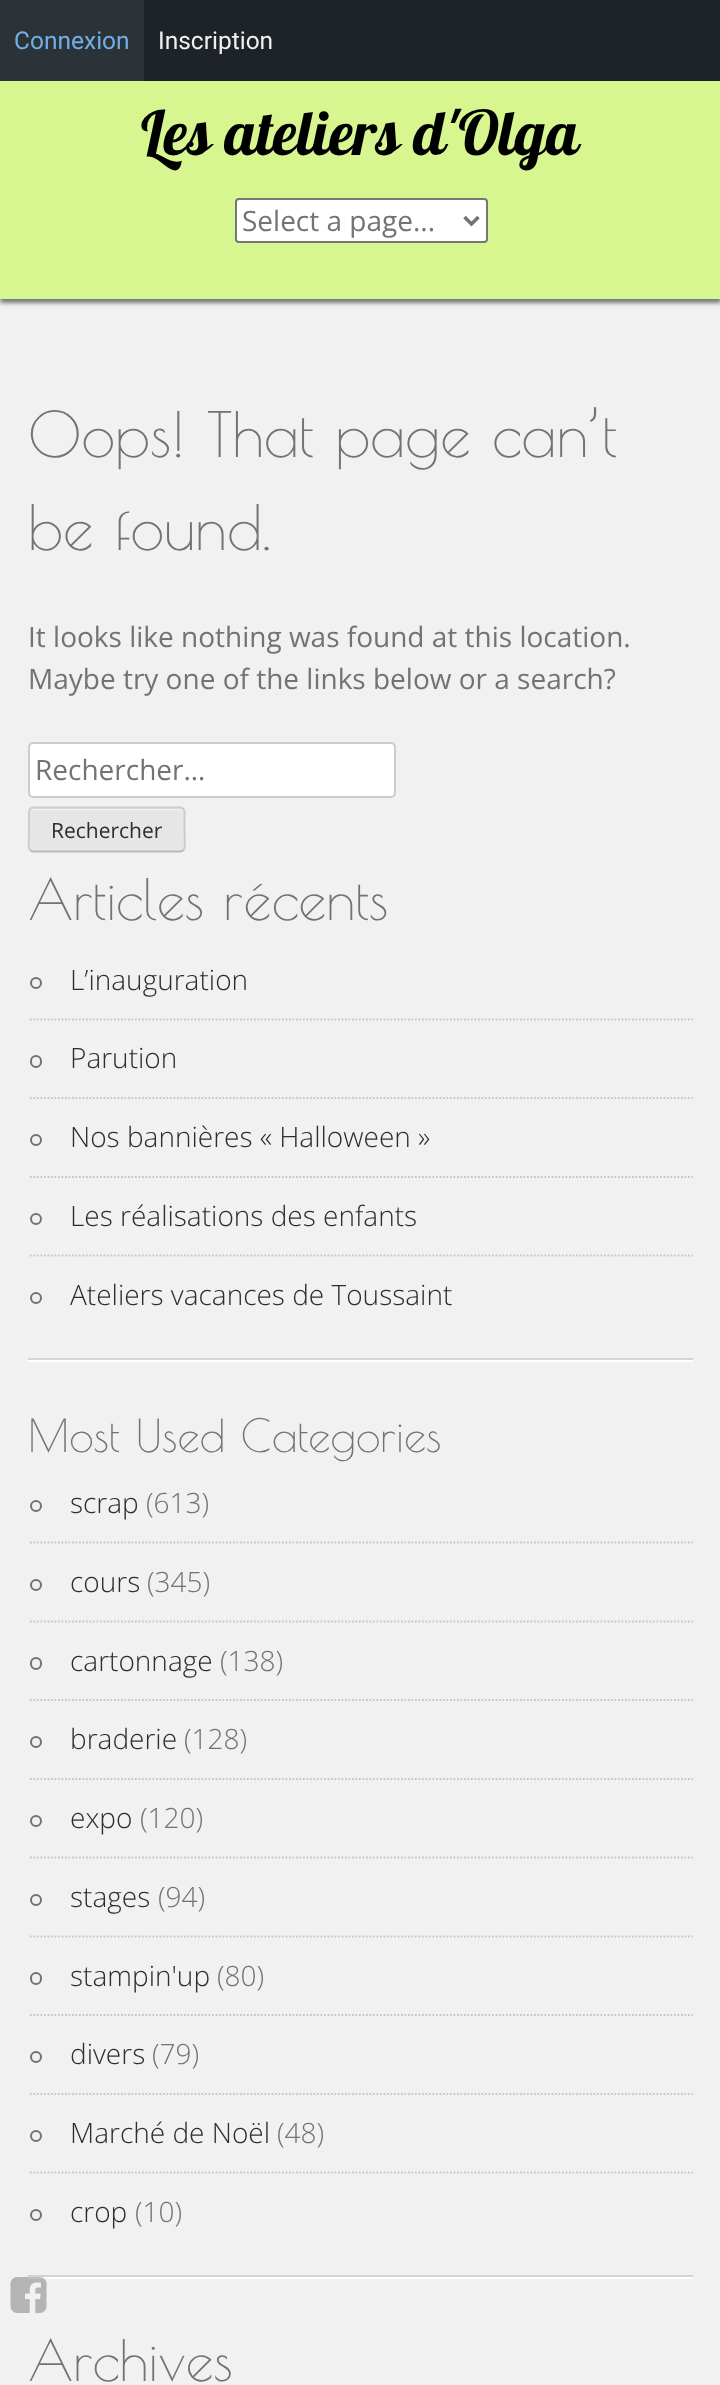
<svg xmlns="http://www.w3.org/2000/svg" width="720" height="2385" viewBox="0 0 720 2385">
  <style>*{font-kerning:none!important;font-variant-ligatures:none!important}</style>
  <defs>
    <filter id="blur1" x="-50%" y="-200%" width="200%" height="500%"><feGaussianBlur stdDeviation="2"/></filter>
  </defs>
  <rect width="100%" height="100%" fill="#f1f1f1"/>
  <rect x="0" y="84" width="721" height="219" fill="#000000" fill-opacity="0.5" filter="url(#blur1)"/>
  <rect x="144" y="0" width="576" height="81" fill="#1d2327"/>
  <rect x="0" y="0" width="144" height="81" fill="#2c3338"/>
  <text x="14" y="49" font-family="Roboto" font-size="24.5" fill="#72aee6">Connexion</text>
  <text x="158" y="49" font-family="Roboto" font-size="24.5" fill="#f0f0f1">Inscription</text>
  <rect x="28" y="2277" width="665" height="2" fill="#ffffff"/>
  <image x="10" y="2277" width="37" height="36" href="img1.png"/>
  <rect x="0" y="81" width="720" height="218" fill="#d7f68f"/>
  <text x="141" y="155" font-family="Lobster" font-size="61.5" fill="#000000">Les ateliers d'Olga</text>
  <rect x="236" y="199" width="251" height="43" rx="3" fill="#ffffff" stroke="#767676" stroke-width="2"/>
  <path d="M464.5 217L471.5 224L478.5 217" fill="none" stroke="#737373" stroke-width="3.5"/>
  <text x="242" y="231" font-family="Open Sans" font-size="28" fill="#737373">Select a page...</text>
  <text x="28" y="457" font-family="Poiret One" font-size="61.5" fill="#737373">Oops! That page can’t</text>
  <text x="28" y="550" font-family="Poiret One" font-size="61.5" fill="#737373">be found.</text>
  <text x="28" y="647" font-family="Open Sans" font-size="28" fill="#737373">It looks like nothing was found at this location.</text>
  <text x="28" y="689" font-family="Open Sans" font-size="28" fill="#737373">Maybe try one of the links below or a search?</text>
  <rect x="29" y="743" width="366" height="54" rx="4" fill="#ffffff" stroke="#cccccc" stroke-width="2"/>
  <text x="35" y="780" font-family="Open Sans" font-size="28" fill="#737373">Rechercher…</text>
  <rect x="28" y="807" width="158" height="45" rx="5" fill="#e6e6e6"/>
  <path d="M33 810H180C182 810 184 812 184 814C184 811 183 809 180 809H33C31 810 30 812 30 814C30 812 31 810 33 810Z" fill="#f3f3f3"/>
  <path d="M183.5 850C182.5 851 181.5 851.5 180 851.5H33C32 851.5 31 851 30 850" fill="none" stroke="#bbbbbb" stroke-width="1.8"/>
  <path d="M30 850C27.5 847.5 29 838.5 29 835.5V818C29 814.5 28 807.5 33 807.5H180C185.5 807.5 184.5 814.5 184.5 818V835.5C184.5 838.5 186 847.5 183.5 850" fill="none" stroke="#cccccc" stroke-width="1.8"/>
  <text x="51" y="838" font-family="Open Sans" font-size="21" fill="#2e2e2e">Rechercher</text>
  <rect x="28" y="1360" width="665" height="2" fill="#ffffff"/>
  <rect x="28" y="1358" width="665" height="2" fill="#d4d4d4"/>
  <text x="28" y="920" font-family="Poiret One" font-size="56" fill="#737373">Articles récents</text>
  <path d="M30 1019.5H693" fill="none" stroke="#c7c7c7" stroke-width="1.8" stroke-dasharray="1.75 1.75"/>
  <circle cx="36" cy="983" r="5" fill="none" stroke="#737373" stroke-width="2"/>
  <text x="70" y="990" font-family="Open Sans" font-size="28" font-weight="300" fill="#2e2e2e">L’inauguration</text>
  <path d="M30 1098H693" fill="none" stroke="#c7c7c7" stroke-width="1.8" stroke-dasharray="1.75 1.75"/>
  <rect x="31" y="1056" width="10" height="11" rx="5" fill="none" stroke="#737373" stroke-width="2"/>
  <text x="70" y="1068" font-family="Open Sans" font-size="28" font-weight="300" fill="#2e2e2e">Parution</text>
  <path d="M30 1177H693" fill="none" stroke="#c7c7c7" stroke-width="1.8" stroke-dasharray="1.75 1.75"/>
  <circle cx="36" cy="1140" r="5" fill="none" stroke="#737373" stroke-width="2"/>
  <text x="70" y="1147" font-family="Open Sans" font-size="28" font-weight="300" fill="#2e2e2e">Nos bannières « Halloween »</text>
  <path d="M30 1255.5H693" fill="none" stroke="#c7c7c7" stroke-width="1.8" stroke-dasharray="1.75 1.75"/>
  <circle cx="36" cy="1219" r="5" fill="none" stroke="#737373" stroke-width="2"/>
  <text x="70" y="1226" font-family="Open Sans" font-size="28" font-weight="300" fill="#2e2e2e">Les réalisations des enfants</text>
  <circle cx="36" cy="1298" r="5" fill="none" stroke="#737373" stroke-width="2"/>
  <text x="70" y="1305" font-family="Open Sans" font-size="28" font-weight="300" fill="#2e2e2e">Ateliers vacances de Toussaint</text>
  <rect x="28" y="2275" width="665" height="2" fill="#d4d4d4"/>
  <text x="28" y="1452" font-family="Poiret One" font-size="44.75" fill="#737373">Most Used Categories</text>
  <path d="M30 1542.5H693" fill="none" stroke="#c7c7c7" stroke-width="1.8" stroke-dasharray="1.75 1.75"/>
  <circle cx="36" cy="1506" r="5" fill="none" stroke="#737373" stroke-width="2"/>
  <text x="70" y="1513" font-family="Open Sans" font-size="28" font-weight="300" fill="#2e2e2e">scrap</text>
  <text x="146" y="1513" font-family="Open Sans" font-size="28" font-weight="300" fill="#737373">(613)</text>
  <path d="M30 1621.5H693" fill="none" stroke="#c7c7c7" stroke-width="1.8" stroke-dasharray="1.75 1.75"/>
  <circle cx="36" cy="1585" r="5" fill="none" stroke="#737373" stroke-width="2"/>
  <text x="70" y="1592" font-family="Open Sans" font-size="28" font-weight="300" fill="#2e2e2e">cours</text>
  <text x="147" y="1592" font-family="Open Sans" font-size="28" font-weight="300" fill="#737373">(345)</text>
  <path d="M30 1700H693" fill="none" stroke="#c7c7c7" stroke-width="1.8" stroke-dasharray="1.75 1.75"/>
  <rect x="31" y="1658" width="10" height="11" rx="5" fill="none" stroke="#737373" stroke-width="2"/>
  <text x="70" y="1671" font-family="Open Sans" font-size="28" font-weight="300" fill="#2e2e2e">cartonnage</text>
  <text x="220" y="1671" font-family="Open Sans" font-size="28" font-weight="300" fill="#737373">(138)</text>
  <path d="M30 1779H693" fill="none" stroke="#c7c7c7" stroke-width="1.8" stroke-dasharray="1.75 1.75"/>
  <circle cx="36" cy="1742" r="5" fill="none" stroke="#737373" stroke-width="2"/>
  <text x="70" y="1749" font-family="Open Sans" font-size="28" font-weight="300" fill="#2e2e2e">braderie</text>
  <text x="184" y="1749" font-family="Open Sans" font-size="28" font-weight="300" fill="#737373">(128)</text>
  <path d="M30 1857.5H693" fill="none" stroke="#c7c7c7" stroke-width="1.8" stroke-dasharray="1.75 1.75"/>
  <circle cx="36" cy="1821" r="5" fill="none" stroke="#737373" stroke-width="2"/>
  <text x="70" y="1828" font-family="Open Sans" font-size="28" font-weight="300" fill="#2e2e2e">expo</text>
  <text x="140" y="1828" font-family="Open Sans" font-size="28" font-weight="300" fill="#737373">(120)</text>
  <path d="M30 1936.5H693" fill="none" stroke="#c7c7c7" stroke-width="1.8" stroke-dasharray="1.75 1.75"/>
  <circle cx="36" cy="1900" r="5" fill="none" stroke="#737373" stroke-width="2"/>
  <text x="70" y="1907" font-family="Open Sans" font-size="28" font-weight="300" fill="#2e2e2e">stages</text>
  <text x="158" y="1907" font-family="Open Sans" font-size="28" font-weight="300" fill="#737373">(94)</text>
  <path d="M30 2015H693" fill="none" stroke="#c7c7c7" stroke-width="1.8" stroke-dasharray="1.75 1.75"/>
  <rect x="31" y="1973" width="10" height="11" rx="5" fill="none" stroke="#737373" stroke-width="2"/>
  <text x="70" y="1986" font-family="Open Sans" font-size="28" font-weight="300" fill="#2e2e2e">stampin'up</text>
  <text x="217" y="1986" font-family="Open Sans" font-size="28" font-weight="300" fill="#737373">(80)</text>
  <path d="M30 2094H693" fill="none" stroke="#c7c7c7" stroke-width="1.8" stroke-dasharray="1.75 1.75"/>
  <circle cx="36" cy="2057" r="5" fill="none" stroke="#737373" stroke-width="2"/>
  <text x="70" y="2064" font-family="Open Sans" font-size="28" font-weight="300" fill="#2e2e2e">divers</text>
  <text x="152" y="2064" font-family="Open Sans" font-size="28" font-weight="300" fill="#737373">(79)</text>
  <path d="M30 2172.5H693" fill="none" stroke="#c7c7c7" stroke-width="1.8" stroke-dasharray="1.75 1.75"/>
  <circle cx="36" cy="2136" r="5" fill="none" stroke="#737373" stroke-width="2"/>
  <text x="70" y="2143" font-family="Open Sans" font-size="28" font-weight="300" fill="#2e2e2e">Marché de Noël</text>
  <text x="277" y="2143" font-family="Open Sans" font-size="28" font-weight="300" fill="#737373">(48)</text>
  <circle cx="36" cy="2215" r="5" fill="none" stroke="#737373" stroke-width="2"/>
  <text x="70" y="2222" font-family="Open Sans" font-size="28" font-weight="300" fill="#2e2e2e">crop</text>
  <text x="135" y="2222" font-family="Open Sans" font-size="28" font-weight="300" fill="#737373">(10)</text>
  <text x="28" y="2381" font-family="Poiret One" font-size="56" fill="#737373">Archives</text>
</svg>
